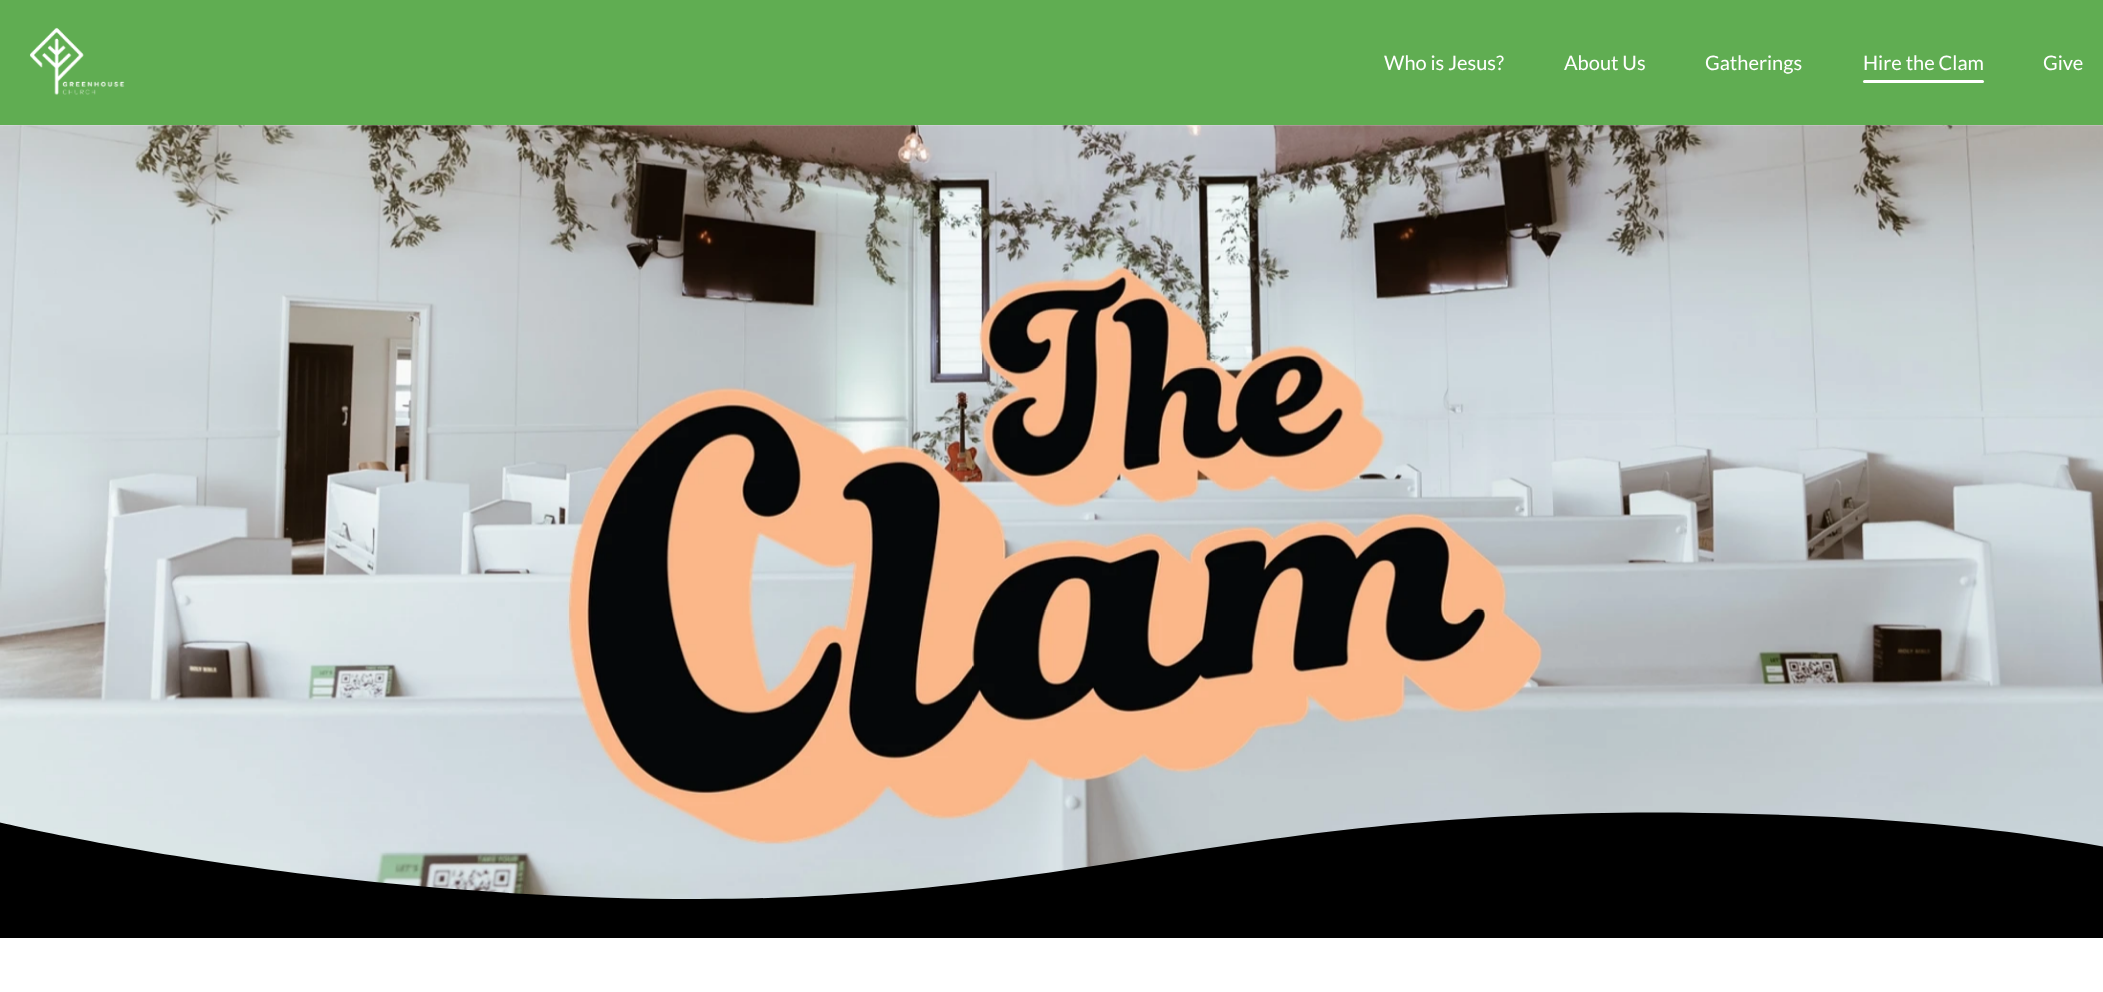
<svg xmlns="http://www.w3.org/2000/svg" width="2103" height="992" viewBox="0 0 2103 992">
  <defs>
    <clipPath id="clip1"><rect x="0" y="806" width="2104" height="132"/></clipPath>
  </defs>
  <rect width="100%" height="100%" fill="#ffffff"/>
  <rect x="0" y="0" width="2103" height="125" fill="#60ad52"/>
  <image x="30" y="27" width="95" height="68" href="img1.png"/>
  <text x="1384" y="70" font-family="Lato" font-size="20" fill="#ffffff">Who is Jesus?</text>
  <text x="1564" y="70" font-family="Lato" font-size="20" fill="#ffffff">About Us</text>
  <text x="1705" y="70" font-family="Lato" font-size="20" fill="#ffffff">Gatherings</text>
  <text x="1863" y="70" font-family="Lato" font-size="20" fill="#ffffff">Hire the Clam</text>
  <rect x="1863" y="80" width="121" height="3" rx="1.5" fill="#ffffff"/>
  <text x="2043" y="70" font-family="Lato" font-size="20" fill="#ffffff">Give</text>
  <image x="0" y="125" width="2103" height="774" href="img2.png"/>
  <g clip-path="url(#clip1)">
    <path d="M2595 955C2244 899 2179 820 1703 813C1242 806 1089 899 699 899C310 899-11 820-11 820V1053H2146Z" fill="#000000"/>
  </g>
</svg>
